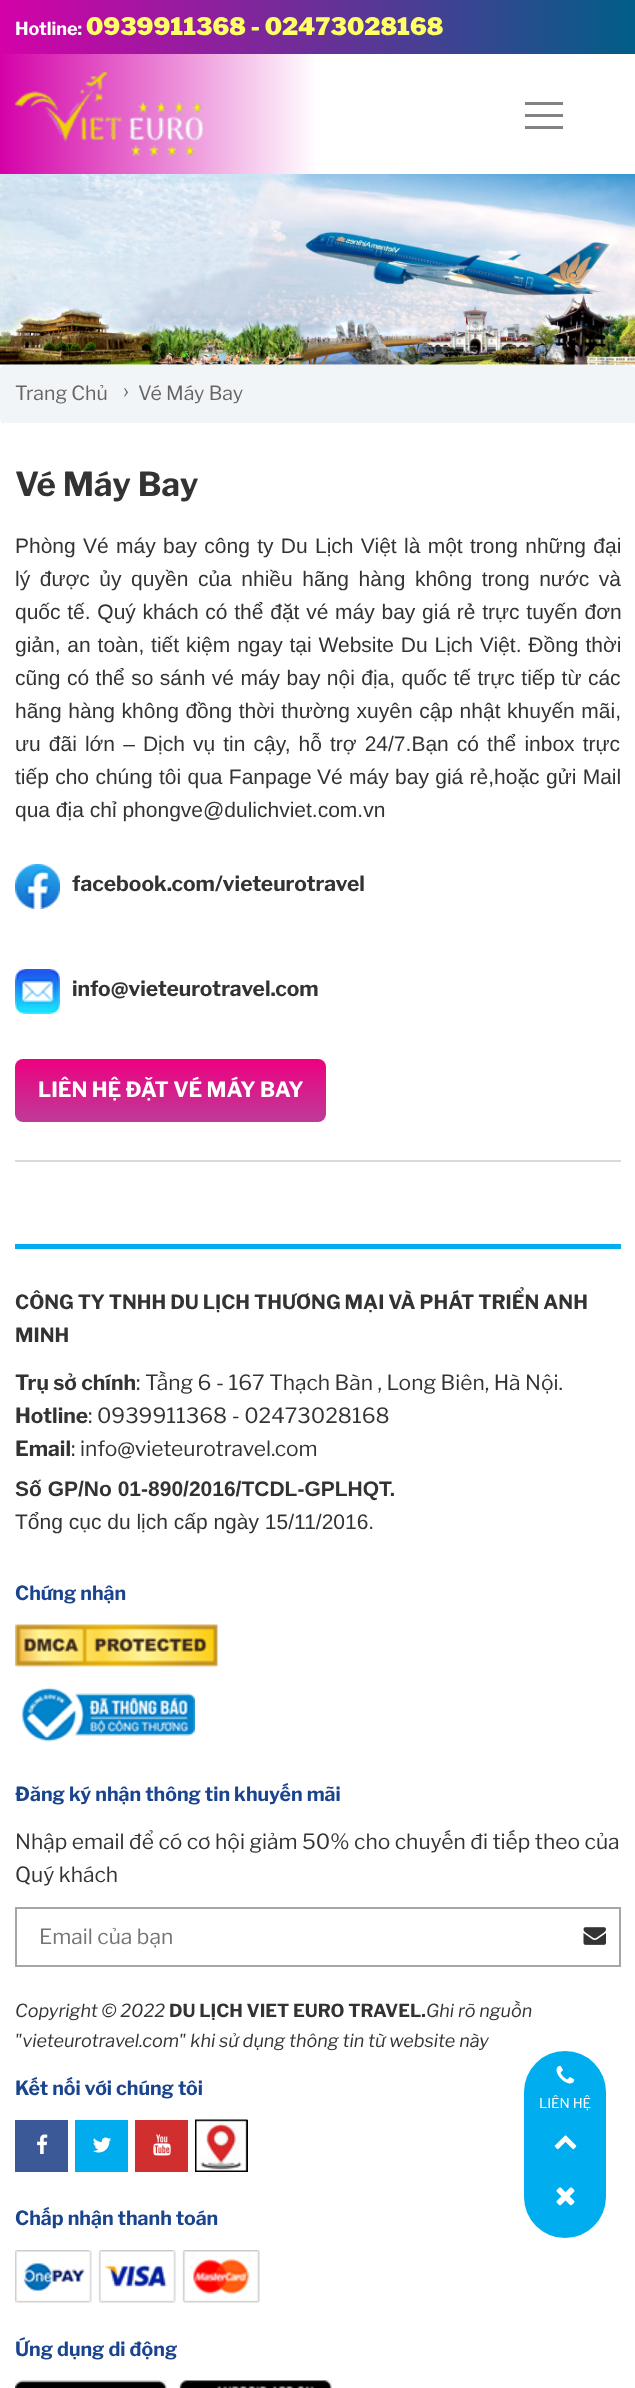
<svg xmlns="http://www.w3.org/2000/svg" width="635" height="2388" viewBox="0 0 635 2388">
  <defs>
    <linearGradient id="g1" gradientUnits="userSpaceOnUse" x1="0" y1="27" x2="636" y2="27"><stop offset="0" stop-color="#d401a8"/><stop offset="1" stop-color="#005e88"/></linearGradient>
    <linearGradient id="g2" gradientUnits="userSpaceOnUse" x1="0" y1="114" x2="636" y2="114"><stop offset="0" stop-color="#d401a8"/><stop offset="0.5" stop-color="#ffffff"/></linearGradient>
    <linearGradient id="g3" gradientUnits="userSpaceOnUse" x1="170" y1="1059" x2="170" y2="1122"><stop offset="0" stop-color="#ed0080"/><stop offset="1" stop-color="#be3b98"/></linearGradient>
  </defs>
  <rect width="100%" height="100%" fill="#ffffff"/>
  <rect x="0" y="0" width="635" height="54" fill="url(#g1)"/>
  <text x="15" y="35" font-family="Libre Franklin" font-size="18" font-weight="bold" fill="#ffffff">Hotline:</text>
  <text x="86" y="35" font-family="Libre Franklin" font-size="24" font-weight="900" fill="#ffff66">0939911368 - 02473028168</text>
  <rect x="0" y="54" width="315" height="120" fill="url(#g2)"/>
  <image x="15" y="72" width="188" height="84" href="img1.png"/>
  <rect x="525" y="102" width="38" height="3" fill="#818285"/>
  <rect x="525" y="114" width="38" height="3" fill="#818285"/>
  <rect x="525" y="126" width="38" height="3" fill="#818285"/>
  <rect x="524" y="2051" width="82" height="187" rx="41" fill="#00aeef"/>
  <image x="556" y="2065" width="19" height="19" href="img2.png"/>
  <text x="539" y="2108" font-family="Libre Franklin" font-size="13.5" fill="#ffffff">LIÊN HỆ</text>
  <image x="554" y="2135" width="23" height="15" href="img3.png"/>
  <image x="556" y="2187" width="19" height="19" href="img4.png"/>
  <image x="0" y="174" width="635" height="191" href="img5.png"/>
  <rect x="0" y="365" width="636" height="60" rx="6" fill="#f2f5f8"/>
  <rect x="3" y="423" width="630" height="2" fill="#ffffff"/>
  <text x="15" y="400" font-family="Libre Franklin" font-size="19.5" fill="#666666">Trang Chủ</text>
  <text x="123" y="398" font-family="Libre Franklin" font-size="22" fill="#666666">›</text>
  <text x="138" y="400" font-family="Libre Franklin" font-size="19.5" fill="#666666">Vé Máy Bay</text>
  <rect x="15" y="1160" width="606" height="2" fill="#d9d9d9"/>
  <text x="15" y="496" font-family="Libre Franklin" font-size="33" font-weight="bold" fill="#333333">Vé Máy Bay</text>
  <text x="15" y="553" word-spacing="1.5" font-family="Liberation Sans" font-size="21" fill="#333333">Phòng Vé máy bay công ty Du Lịch Việt là một trong những đại</text>
  <text x="15" y="586" word-spacing="3.75" font-family="Liberation Sans" font-size="21" fill="#333333">lý được ủy quyền của nhiều hãng hàng không trong nước và</text>
  <text x="15" y="619" word-spacing="0.9" font-family="Liberation Sans" font-size="21" fill="#333333">quốc tế. Quý khách có thể đặt vé máy bay giá rẻ trực tuyến đơn</text>
  <text x="15" y="652" word-spacing="1" font-family="Liberation Sans" font-size="21" fill="#333333">giản, an toàn, tiết kiệm ngay tại Website Du Lịch Việt. Đồng thời</text>
  <text x="15" y="685" word-spacing="0.6" font-family="Liberation Sans" font-size="21" fill="#333333">cũng có thể so sánh vé máy bay nội địa, quốc tế trực tiếp từ các</text>
  <text x="15" y="718" word-spacing="0.75" font-family="Liberation Sans" font-size="21" fill="#333333">hãng hàng không đồng thời thường xuyên cập nhật khuyến mãi,</text>
  <text x="15" y="751" word-spacing="2.25" font-family="Liberation Sans" font-size="21" fill="#333333">ưu đãi lớn – Dịch vụ tin cậy, hỗ trợ 24/7.Bạn có thể inbox trực</text>
  <text x="15" y="784" word-spacing="0.5" font-family="Liberation Sans" font-size="21" fill="#333333">tiếp cho chúng tôi qua Fanpage</text>
  <text x="317" y="784" word-spacing="0.5" font-family="Liberation Sans" font-size="21" fill="#333333">Vé máy bay giá rẻ,hoặc gửi Mail</text>
  <text x="15" y="817" font-family="Liberation Sans" font-size="21" fill="#333333">qua địa chỉ phongve@dulichviet.com.vn</text>
  <image x="15" y="864" width="45" height="45" href="img6.png"/>
  <text x="72" y="891" font-family="Libre Franklin" font-size="21" font-weight="bold" fill="#333333">facebook.com/vieteurotravel</text>
  <image x="15" y="969" width="45" height="45" href="img7.png"/>
  <text x="72" y="996" font-family="Libre Franklin" font-size="21" font-weight="bold" fill="#333333">info@vieteurotravel.com</text>
  <rect x="15" y="1059" width="311" height="63" rx="8" fill="url(#g3)"/>
  <text x="38" y="1097" font-family="Libre Franklin" font-size="21" font-weight="bold" fill="#ffffff">LIÊN HỆ ĐẶT VÉ MÁY BAY</text>
  <rect x="15" y="1244" width="606" height="5" fill="#00aeef"/>
  <text x="15" y="1309" font-family="Libre Franklin" font-size="19.5" font-weight="bold" fill="#333333">CÔNG TY TNHH DU LỊCH THƯƠNG MẠI VÀ PHÁT TRIỂN ANH</text>
  <text x="15" y="1342" font-family="Libre Franklin" font-size="19.5" font-weight="bold" fill="#333333">MINH</text>
  <text x="15" y="1390" font-family="Libre Franklin" font-size="21" font-weight="bold" fill="#333333">Trụ sở chính</text>
  <text x="136" y="1390" font-family="Libre Franklin" font-size="21" fill="#333333">: Tầng 6 - 167 Thạch Bàn , Long Biên, Hà Nội.</text>
  <text x="15" y="1423" font-family="Libre Franklin" font-size="21" font-weight="bold" fill="#333333">Hotline</text>
  <text x="88" y="1423" font-family="Libre Franklin" font-size="21" fill="#333333">: 0939911368 - 02473028168</text>
  <text x="15" y="1456" font-family="Libre Franklin" font-size="21" font-weight="bold" fill="#333333">Email</text>
  <text x="71" y="1456" font-family="Libre Franklin" font-size="21" fill="#333333">: info@vieteurotravel.com</text>
  <text x="15" y="1496" font-family="Liberation Sans" font-size="21" font-weight="bold" fill="#333333">Số GP/No 01-890/2016/TCDL-GPLHQT.</text>
  <text x="15" y="1529" font-family="Liberation Sans" font-size="21" fill="#333333">Tổng cục du lịch cấp ngày 15/11/2016.</text>
  <text x="15" y="1600" font-family="Libre Franklin" font-size="19.5" font-weight="bold" fill="#1b448e">Chứng nhận</text>
  <image x="15" y="1624" width="203" height="43" href="img8.png"/>
  <image x="21" y="1687" width="174" height="55" href="img9.png"/>
  <text x="15" y="1801" font-family="Libre Franklin" font-size="19.5" font-weight="bold" fill="#1b448e">Đăng ký nhận thông tin khuyến mãi</text>
  <text x="15" y="1849" font-family="Libre Franklin" font-size="21" fill="#333333">Nhập email để có cơ hội giảm 50% cho chuyến đi tiếp theo của</text>
  <text x="15" y="1882" font-family="Libre Franklin" font-size="21" fill="#333333">Quý khách</text>
  <rect x="16" y="1908" width="604" height="58" fill="none" stroke="#a6a6a6" stroke-width="2"/>
  <text x="39" y="1944" font-family="Libre Franklin" font-size="21" fill="#757575">Email của bạn</text>
  <image x="583" y="1927" width="23" height="18" href="img10.png"/>
  <text x="15" y="2017" font-family="Libre Franklin" font-size="18" font-style="italic" fill="#333333">Copyright © 2022</text>
  <text x="169" y="2017" font-family="Libre Franklin" font-size="18" font-weight="bold" fill="#333333">DU LỊCH VIET EURO TRAVEL.</text>
  <text x="426" y="2017" font-family="Libre Franklin" font-size="18" font-style="italic" fill="#333333">Ghi rõ nguồn</text>
  <text x="15" y="2047" font-family="Libre Franklin" font-size="18" font-style="italic" fill="#333333">"vieteurotravel.com" khi sử dụng thông tin từ website này</text>
  <text x="15" y="2095" font-family="Libre Franklin" font-size="19.5" font-weight="bold" fill="#1b448e">Kết nối với chúng tôi</text>
  <rect x="15" y="2120" width="53" height="52" fill="#3b5997"/>
  <image x="37" y="2134" width="11" height="20" href="img11.png"/>
  <rect x="75" y="2120" width="53" height="52" fill="#00aced"/>
  <image x="93" y="2137" width="19" height="16" href="img12.png"/>
  <rect x="135" y="2120" width="53" height="52" fill="#d12f2f"/>
  <image x="153" y="2134" width="18" height="22" href="img13.png"/>
  <rect x="195" y="2120" width="53" height="52" fill="#000000"/>
  <image x="195" y="2119" width="53" height="52" href="img14.png"/>
  <text x="15" y="2225" font-family="Libre Franklin" font-size="19.5" font-weight="bold" fill="#1b448e">Chấp nhận thanh toán</text>
  <image x="15" y="2250" width="245" height="53" href="img15.png"/>
  <text x="15" y="2356" font-family="Libre Franklin" font-size="19.5" font-weight="bold" fill="#1b448e">Ứng dụng di động</text>
  <image x="15" y="2380" width="317" height="8" href="img16.png"/>
</svg>
